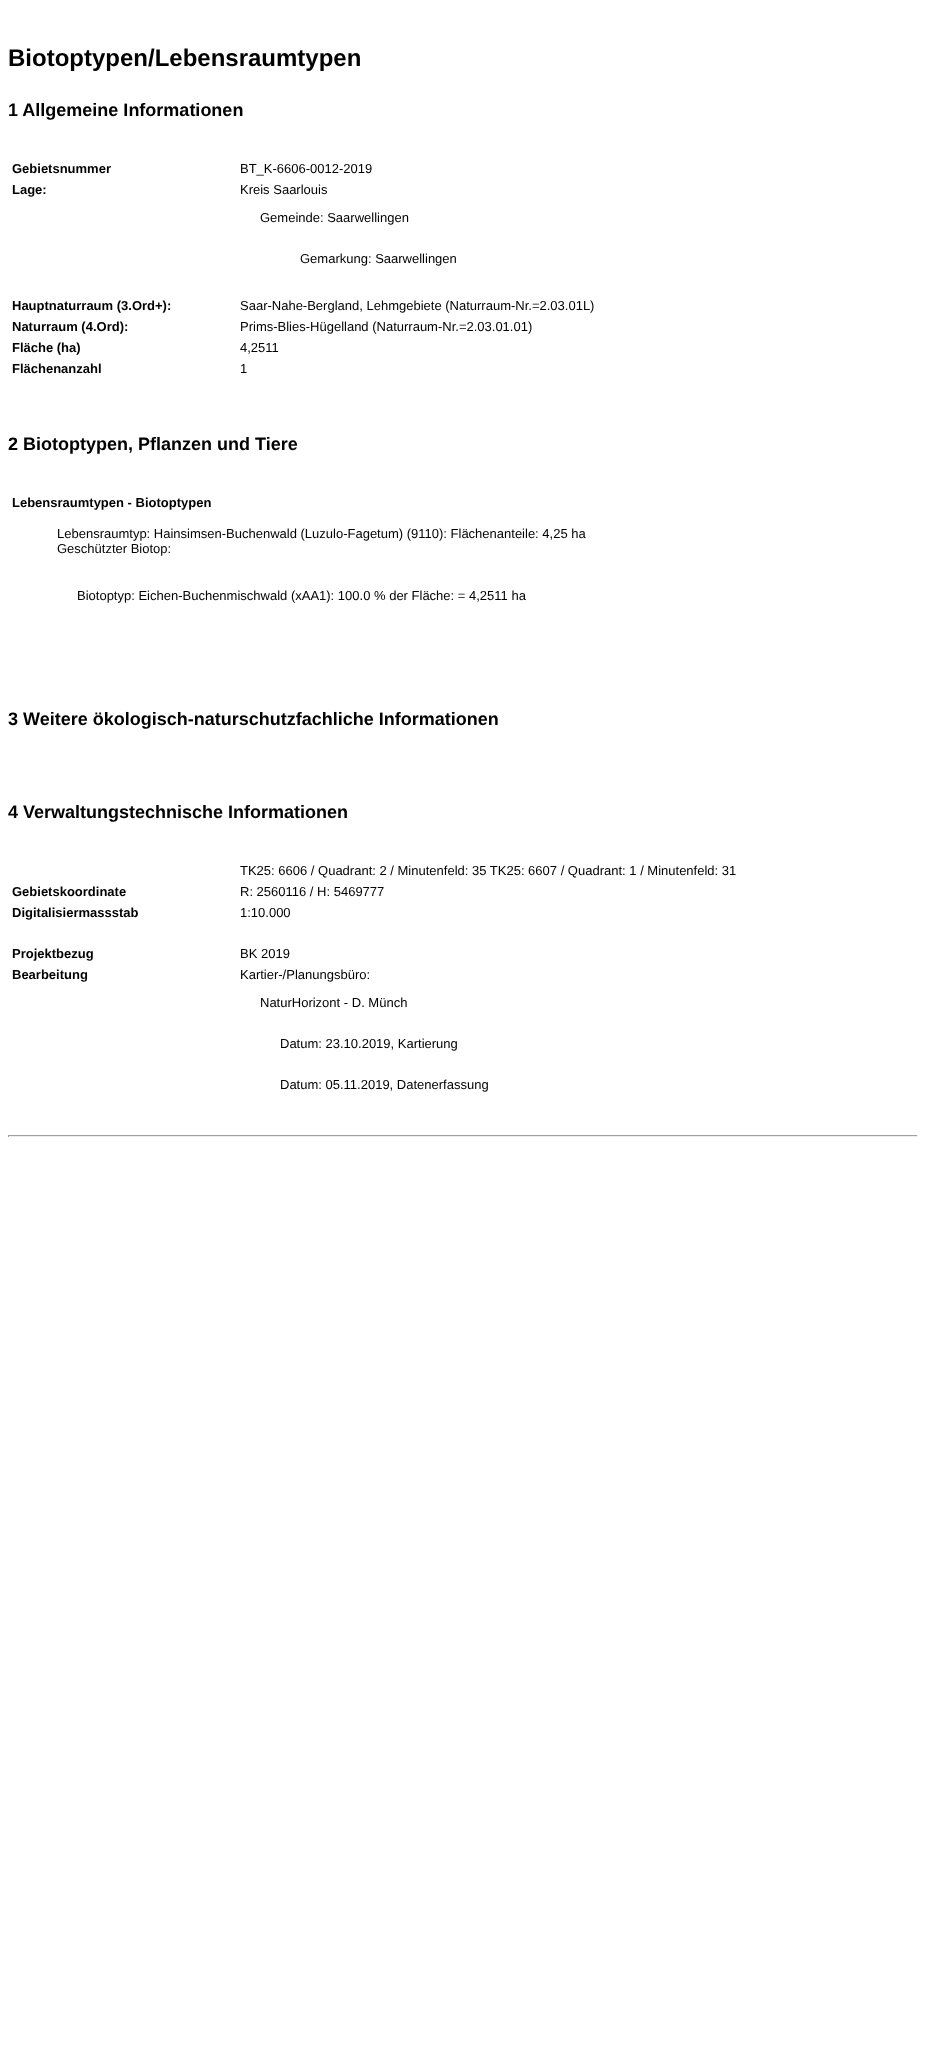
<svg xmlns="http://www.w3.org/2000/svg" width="926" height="2058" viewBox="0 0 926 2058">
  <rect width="100%" height="100%" fill="#ffffff"/>
  <text x="8" y="66" font-family="Liberation Sans" font-size="24" font-weight="bold" fill="#000000">Biotoptypen/Lebensraumtypen</text>
  <text x="8" y="116" font-family="Liberation Sans" font-size="18" font-weight="bold" fill="#000000">1 Allgemeine Informationen</text>
  <text x="12" y="173" font-family="Liberation Sans" font-size="13" font-weight="bold" fill="#000000">Gebietsnummer</text>
  <text x="240" y="173" font-family="Liberation Sans" font-size="13" fill="#000000">BT_K-6606-0012-2019</text>
  <text x="12" y="194" font-family="Liberation Sans" font-size="13" font-weight="bold" fill="#000000">Lage:</text>
  <text x="240" y="194" font-family="Liberation Sans" font-size="13" fill="#000000">Kreis Saarlouis</text>
  <text x="260" y="222" font-family="Liberation Sans" font-size="13" fill="#000000">Gemeinde: Saarwellingen</text>
  <text x="300" y="263" font-family="Liberation Sans" font-size="13" fill="#000000">Gemarkung: Saarwellingen</text>
  <text x="12" y="310" font-family="Liberation Sans" font-size="13" font-weight="bold" fill="#000000">Hauptnaturraum (3.Ord+):</text>
  <text x="240" y="310" font-family="Liberation Sans" font-size="13" fill="#000000">Saar-Nahe-Bergland, Lehmgebiete (Naturraum-Nr.=2.03.01L)</text>
  <text x="12" y="331" font-family="Liberation Sans" font-size="13" font-weight="bold" fill="#000000">Naturraum (4.Ord):</text>
  <text x="240" y="331" font-family="Liberation Sans" font-size="13" fill="#000000">Prims-Blies-Hügelland (Naturraum-Nr.=2.03.01.01)</text>
  <text x="12" y="352" font-family="Liberation Sans" font-size="13" font-weight="bold" fill="#000000">Fläche (ha)</text>
  <text x="240" y="352" font-family="Liberation Sans" font-size="13" fill="#000000">4,2511</text>
  <text x="12" y="373" font-family="Liberation Sans" font-size="13" font-weight="bold" fill="#000000">Flächenanzahl</text>
  <text x="240" y="373" font-family="Liberation Sans" font-size="13" fill="#000000">1</text>
  <text x="8" y="450" font-family="Liberation Sans" font-size="18" font-weight="bold" fill="#000000">2 Biotoptypen, Pflanzen und Tiere</text>
  <text x="12" y="507" font-family="Liberation Sans" font-size="13" font-weight="bold" fill="#000000">Lebensraumtypen - Biotoptypen</text>
  <text x="57" y="538" font-family="Liberation Sans" font-size="13" fill="#000000">Lebensraumtyp: Hainsimsen-Buchenwald (Luzulo-Fagetum) (9110): Flächenanteile: 4,25 ha</text>
  <text x="57" y="553" font-family="Liberation Sans" font-size="13" fill="#000000">Geschützter Biotop:</text>
  <text x="77" y="600" font-family="Liberation Sans" font-size="13" fill="#000000">Biotoptyp: Eichen-Buchenmischwald (xAA1): 100.0 % der Fläche: = 4,2511 ha</text>
  <text x="8" y="725" font-family="Liberation Sans" font-size="18" font-weight="bold" fill="#000000">3 Weitere ökologisch-naturschutzfachliche Informationen</text>
  <text x="8" y="818" font-family="Liberation Sans" font-size="18" font-weight="bold" fill="#000000">4 Verwaltungstechnische Informationen</text>
  <text x="240" y="875" font-family="Liberation Sans" font-size="13" fill="#000000">TK25: 6606 / Quadrant: 2 / Minutenfeld: 35 TK25: 6607 / Quadrant: 1 / Minutenfeld: 31</text>
  <text x="12" y="896" font-family="Liberation Sans" font-size="13" font-weight="bold" fill="#000000">Gebietskoordinate</text>
  <text x="240" y="896" font-family="Liberation Sans" font-size="13" fill="#000000">R: 2560116 / H: 5469777</text>
  <text x="12" y="917" font-family="Liberation Sans" font-size="13" font-weight="bold" fill="#000000">Digitalisiermassstab</text>
  <text x="240" y="917" font-family="Liberation Sans" font-size="13" fill="#000000">1:10.000</text>
  <text x="12" y="958" font-family="Liberation Sans" font-size="13" font-weight="bold" fill="#000000">Projektbezug</text>
  <text x="240" y="958" font-family="Liberation Sans" font-size="13" fill="#000000">BK 2019</text>
  <text x="12" y="979" font-family="Liberation Sans" font-size="13" font-weight="bold" fill="#000000">Bearbeitung</text>
  <text x="240" y="979" font-family="Liberation Sans" font-size="13" fill="#000000">Kartier-/Planungsbüro:</text>
  <text x="260" y="1007" font-family="Liberation Sans" font-size="13" fill="#000000">NaturHorizont - D. Münch</text>
  <text x="280" y="1048" font-family="Liberation Sans" font-size="13" fill="#000000">Datum: 23.10.2019, Kartierung</text>
  <text x="280" y="1089" font-family="Liberation Sans" font-size="13" fill="#000000">Datum: 05.11.2019, Datenerfassung</text>
  <rect x="8" y="1135" width="910" height="1" fill="#9f9f9f"/>
  <rect x="917" y="1135" width="1" height="2" fill="#eeeeee"/>
  <rect x="8" y="1136" width="910" height="1" fill="#eeeeee"/>
  <rect x="8" y="1135" width="1" height="2" fill="#9f9f9f"/>
</svg>
